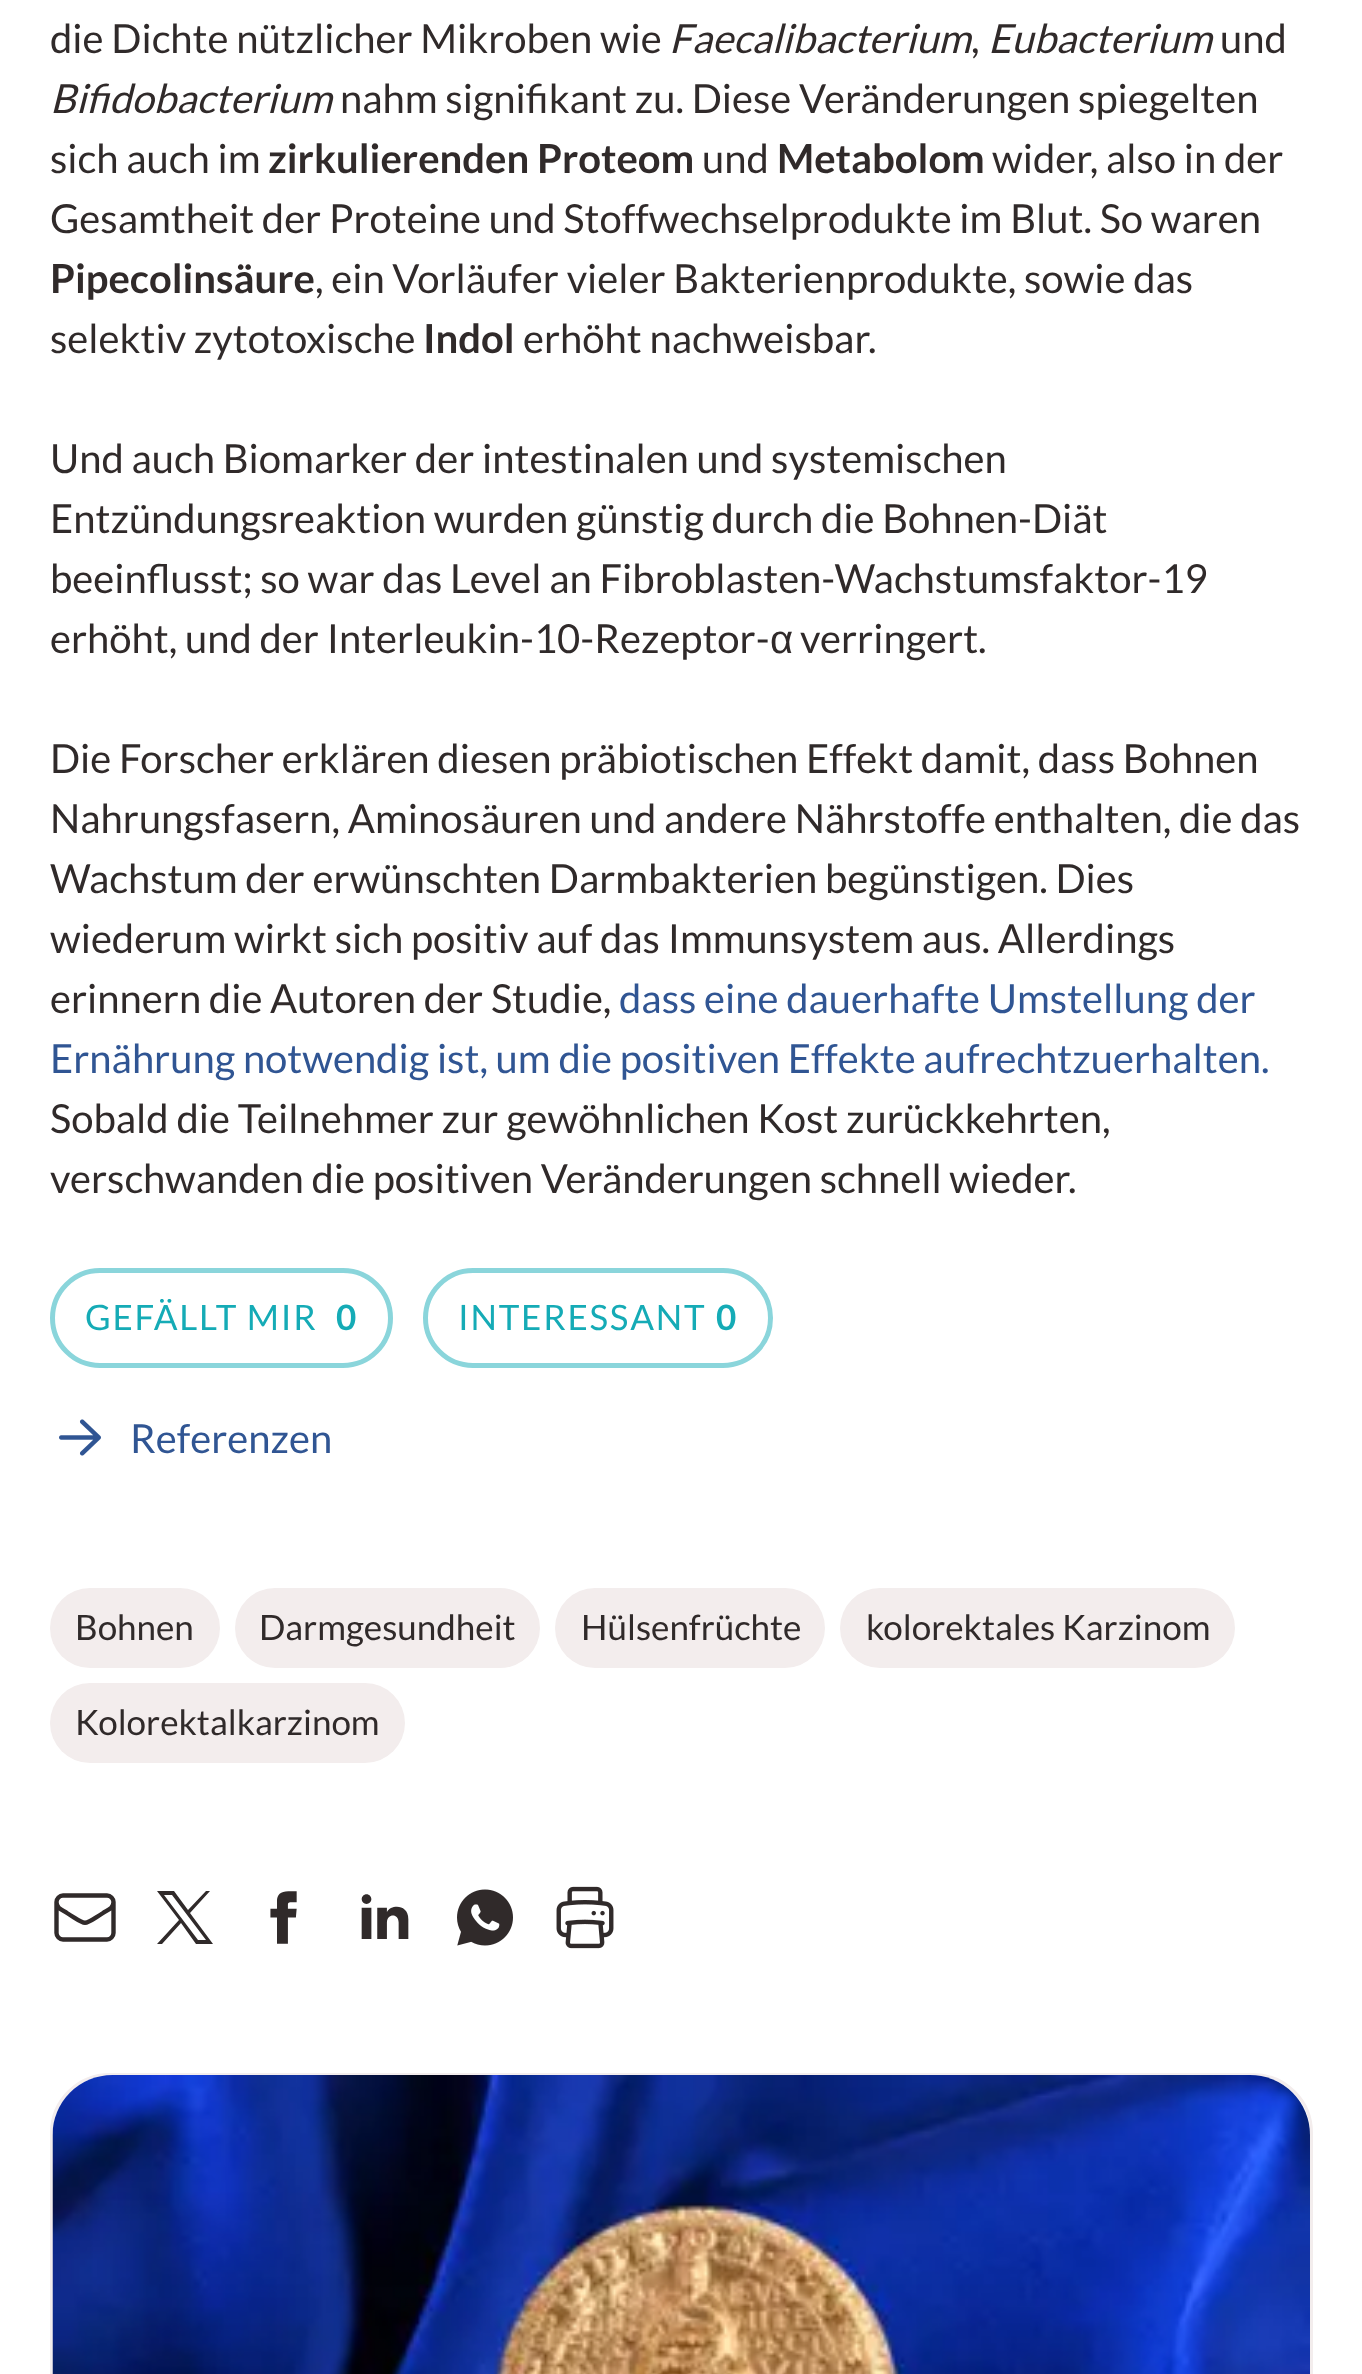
<svg xmlns="http://www.w3.org/2000/svg" width="1362" height="2374" viewBox="0 0 1362 2374">
  <rect width="100%" height="100%" fill="#ffffff"/>
  <text x="50" y="53" font-family="Lato" font-size="40" fill="#302a2a">die Dichte nützlicher Mikroben wie</text>
  <text x="669" y="53" font-family="Lato" font-size="40" font-style="italic" fill="#302a2a">Faecalibacterium</text>
  <text x="971" y="53" font-family="Lato" font-size="40" fill="#302a2a">,</text>
  <text x="988" y="53" font-family="Lato" font-size="40" font-style="italic" fill="#302a2a">Eubacterium</text>
  <text x="1220" y="53" font-family="Lato" font-size="40" fill="#302a2a">und</text>
  <text x="50" y="113" font-family="Lato" font-size="40" font-style="italic" fill="#302a2a">Bifidobacterium</text>
  <text x="340" y="113" font-family="Lato" font-size="40" fill="#302a2a">nahm signifikant zu. Diese Veränderungen spiegelten</text>
  <text x="50" y="173" font-family="Lato" font-size="40" fill="#302a2a">sich auch im</text>
  <text x="268" y="173" font-family="Lato" font-size="40" font-weight="bold" fill="#302a2a">zirkulierenden Proteom</text>
  <text x="702" y="173" font-family="Lato" font-size="40" fill="#302a2a">und</text>
  <text x="777" y="173" font-family="Lato" font-size="40" font-weight="bold" fill="#302a2a">Metabolom</text>
  <text x="992" y="173" font-family="Lato" font-size="40" fill="#302a2a">wider, also in der</text>
  <text x="50" y="233" font-family="Lato" font-size="40" fill="#302a2a">Gesamtheit der Proteine und Stoffwechselprodukte im Blut. So waren</text>
  <text x="50" y="293" font-family="Lato" font-size="40" font-weight="bold" fill="#302a2a">Pipecolinsäure</text>
  <text x="315" y="293" font-family="Lato" font-size="40" fill="#302a2a">, ein Vorläufer vieler Bakterienprodukte, sowie das</text>
  <text x="50" y="353" font-family="Lato" font-size="40" fill="#302a2a">selektiv zytotoxische</text>
  <text x="423" y="353" font-family="Lato" font-size="40" font-weight="bold" fill="#302a2a">Indol</text>
  <text x="523" y="353" font-family="Lato" font-size="40" fill="#302a2a">erhöht nachweisbar.</text>
  <text x="50" y="473" font-family="Lato" font-size="40" fill="#302a2a">Und auch Biomarker der intestinalen und systemischen</text>
  <text x="50" y="533" font-family="Lato" font-size="40" fill="#302a2a">Entzündungsreaktion wurden günstig durch die Bohnen-Diät</text>
  <text x="50" y="593" font-family="Lato" font-size="40" fill="#302a2a">beeinflusst; so war das Level an Fibroblasten-Wachstumsfaktor-19</text>
  <text x="50" y="653" font-family="Lato" font-size="40" fill="#302a2a">erhöht, und der Interleukin-10-Rezeptor-</text>
  <text x="770" y="653" font-family="Liberation Sans" font-size="40" fill="#302a2a">α</text>
  <text x="800" y="653" font-family="Lato" font-size="40" fill="#302a2a">verringert.</text>
  <text x="50" y="773" font-family="Lato" font-size="40" fill="#302a2a">Die Forscher erklären diesen präbiotischen Effekt damit, dass Bohnen</text>
  <text x="50" y="833" font-family="Lato" font-size="40" fill="#302a2a">Nahrungsfasern, Aminosäuren und andere Nährstoffe enthalten, die das</text>
  <text x="50" y="893" font-family="Lato" font-size="40" fill="#302a2a">Wachstum der erwünschten Darmbakterien begünstigen. Dies</text>
  <text x="50" y="953" font-family="Lato" font-size="40" fill="#302a2a">wiederum wirkt sich positiv auf das Immunsystem aus. Allerdings</text>
  <text x="50" y="1013" font-family="Lato" font-size="40" fill="#302a2a">erinnern die Autoren der Studie,</text>
  <text x="619" y="1013" font-family="Lato" font-size="40" fill="#305593">dass eine dauerhafte Umstellung der</text>
  <text x="50" y="1073" font-family="Lato" font-size="40" fill="#305593">Ernährung notwendig ist, um die positiven Effekte aufrechtzuerhalten.</text>
  <text x="50" y="1133" font-family="Lato" font-size="40" fill="#302a2a">Sobald die Teilnehmer zur gewöhnlichen Kost zurückkehrten,</text>
  <text x="50" y="1193" font-family="Lato" font-size="40" fill="#302a2a">verschwanden die positiven Veränderungen schnell wieder.</text>
  <rect x="52.5" y="1270.5" width="338" height="95" rx="47.5" fill="none" stroke="#8ad5db" stroke-width="5"/>
  <text x="85" y="1330" font-family="Lato" font-size="35" letter-spacing="1.75" fill="#15abb6">GEFÄLLT MIR</text>
  <text x="336" y="1330" font-family="Lato" font-size="35" font-weight="bold" letter-spacing="1.75" fill="#15abb6">0</text>
  <rect x="425.5" y="1270.5" width="345" height="95" rx="47.5" fill="none" stroke="#8ad5db" stroke-width="5"/>
  <text x="458" y="1330" font-family="Lato" font-size="35" letter-spacing="1.75" fill="#15abb6">INTERESSANT</text>
  <text x="716" y="1330" font-family="Lato" font-size="35" font-weight="bold" letter-spacing="1.75" fill="#15abb6">0</text>
  <image x="59" y="1419" width="42" height="37" href="img1.png"/>
  <text x="130" y="1453" font-family="Lato" font-size="40" fill="#305593">Referenzen</text>
  <rect x="50" y="1588" width="170" height="80" rx="40" fill="#f3eded"/>
  <text x="75" y="1640" font-family="Lato" font-size="35" fill="#302a2a">Bohnen</text>
  <rect x="235" y="1588" width="305" height="80" rx="40" fill="#f3eded"/>
  <text x="259" y="1640" font-family="Lato" font-size="35" fill="#302a2a">Darmgesundheit</text>
  <rect x="555" y="1588" width="270" height="80" rx="40" fill="#f3eded"/>
  <text x="581" y="1640" font-family="Lato" font-size="35" fill="#302a2a">Hülsenfrüchte</text>
  <rect x="840" y="1588" width="395" height="80" rx="40" fill="#f3eded"/>
  <text x="866" y="1640" font-family="Lato" font-size="35" fill="#302a2a">kolorektales Karzinom</text>
  <rect x="50" y="1683" width="355" height="80" rx="40" fill="#f3eded"/>
  <text x="75" y="1735" font-family="Lato" font-size="35" fill="#302a2a">Kolorektalkarzinom</text>
  <path d="M113.5 1902V1933C113.5 1936.5 110.5 1939.5 107 1939.5H63C59.5 1939.5 56.5 1936.5 56.5 1933V1902M113.5 1902C113.5 1898.5 110.5 1895.5 107 1895.5H63C59.5 1895.5 56.5 1898.5 56.5 1902M113.5 1902C113.5 1908.5 107.5 1910 103 1913C82 1926 88 1926 67 1913C62.5 1910 56.5 1908.5 56.5 1902" fill="none" stroke="#302a2a" stroke-width="4.4" stroke-linecap="round" stroke-linejoin="round"/>
  <path d="M157 1891L179 1920L157 1944H162L181 1923L196 1944H213L190 1913L210 1891H206L188 1910L174 1891ZM164 1895H172L206 1940H198Z" fill="#302a2a"/>
  <image x="270" y="1891" width="27" height="53" href="img2.png"/>
  <image x="361" y="1894" width="48" height="45" href="img3.png"/>
  <image x="457" y="1889" width="56" height="57" href="img4.png"/>
  <image x="556" y="1886" width="58" height="63" href="img5.png"/>
  <rect x="51.5" y="2074.5" width="1260" height="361" rx="58.5" fill="none" stroke="#f3eded" stroke-width="3"/>
  <image x="52" y="2075" width="1258" height="299" href="img6.png"/>
</svg>
